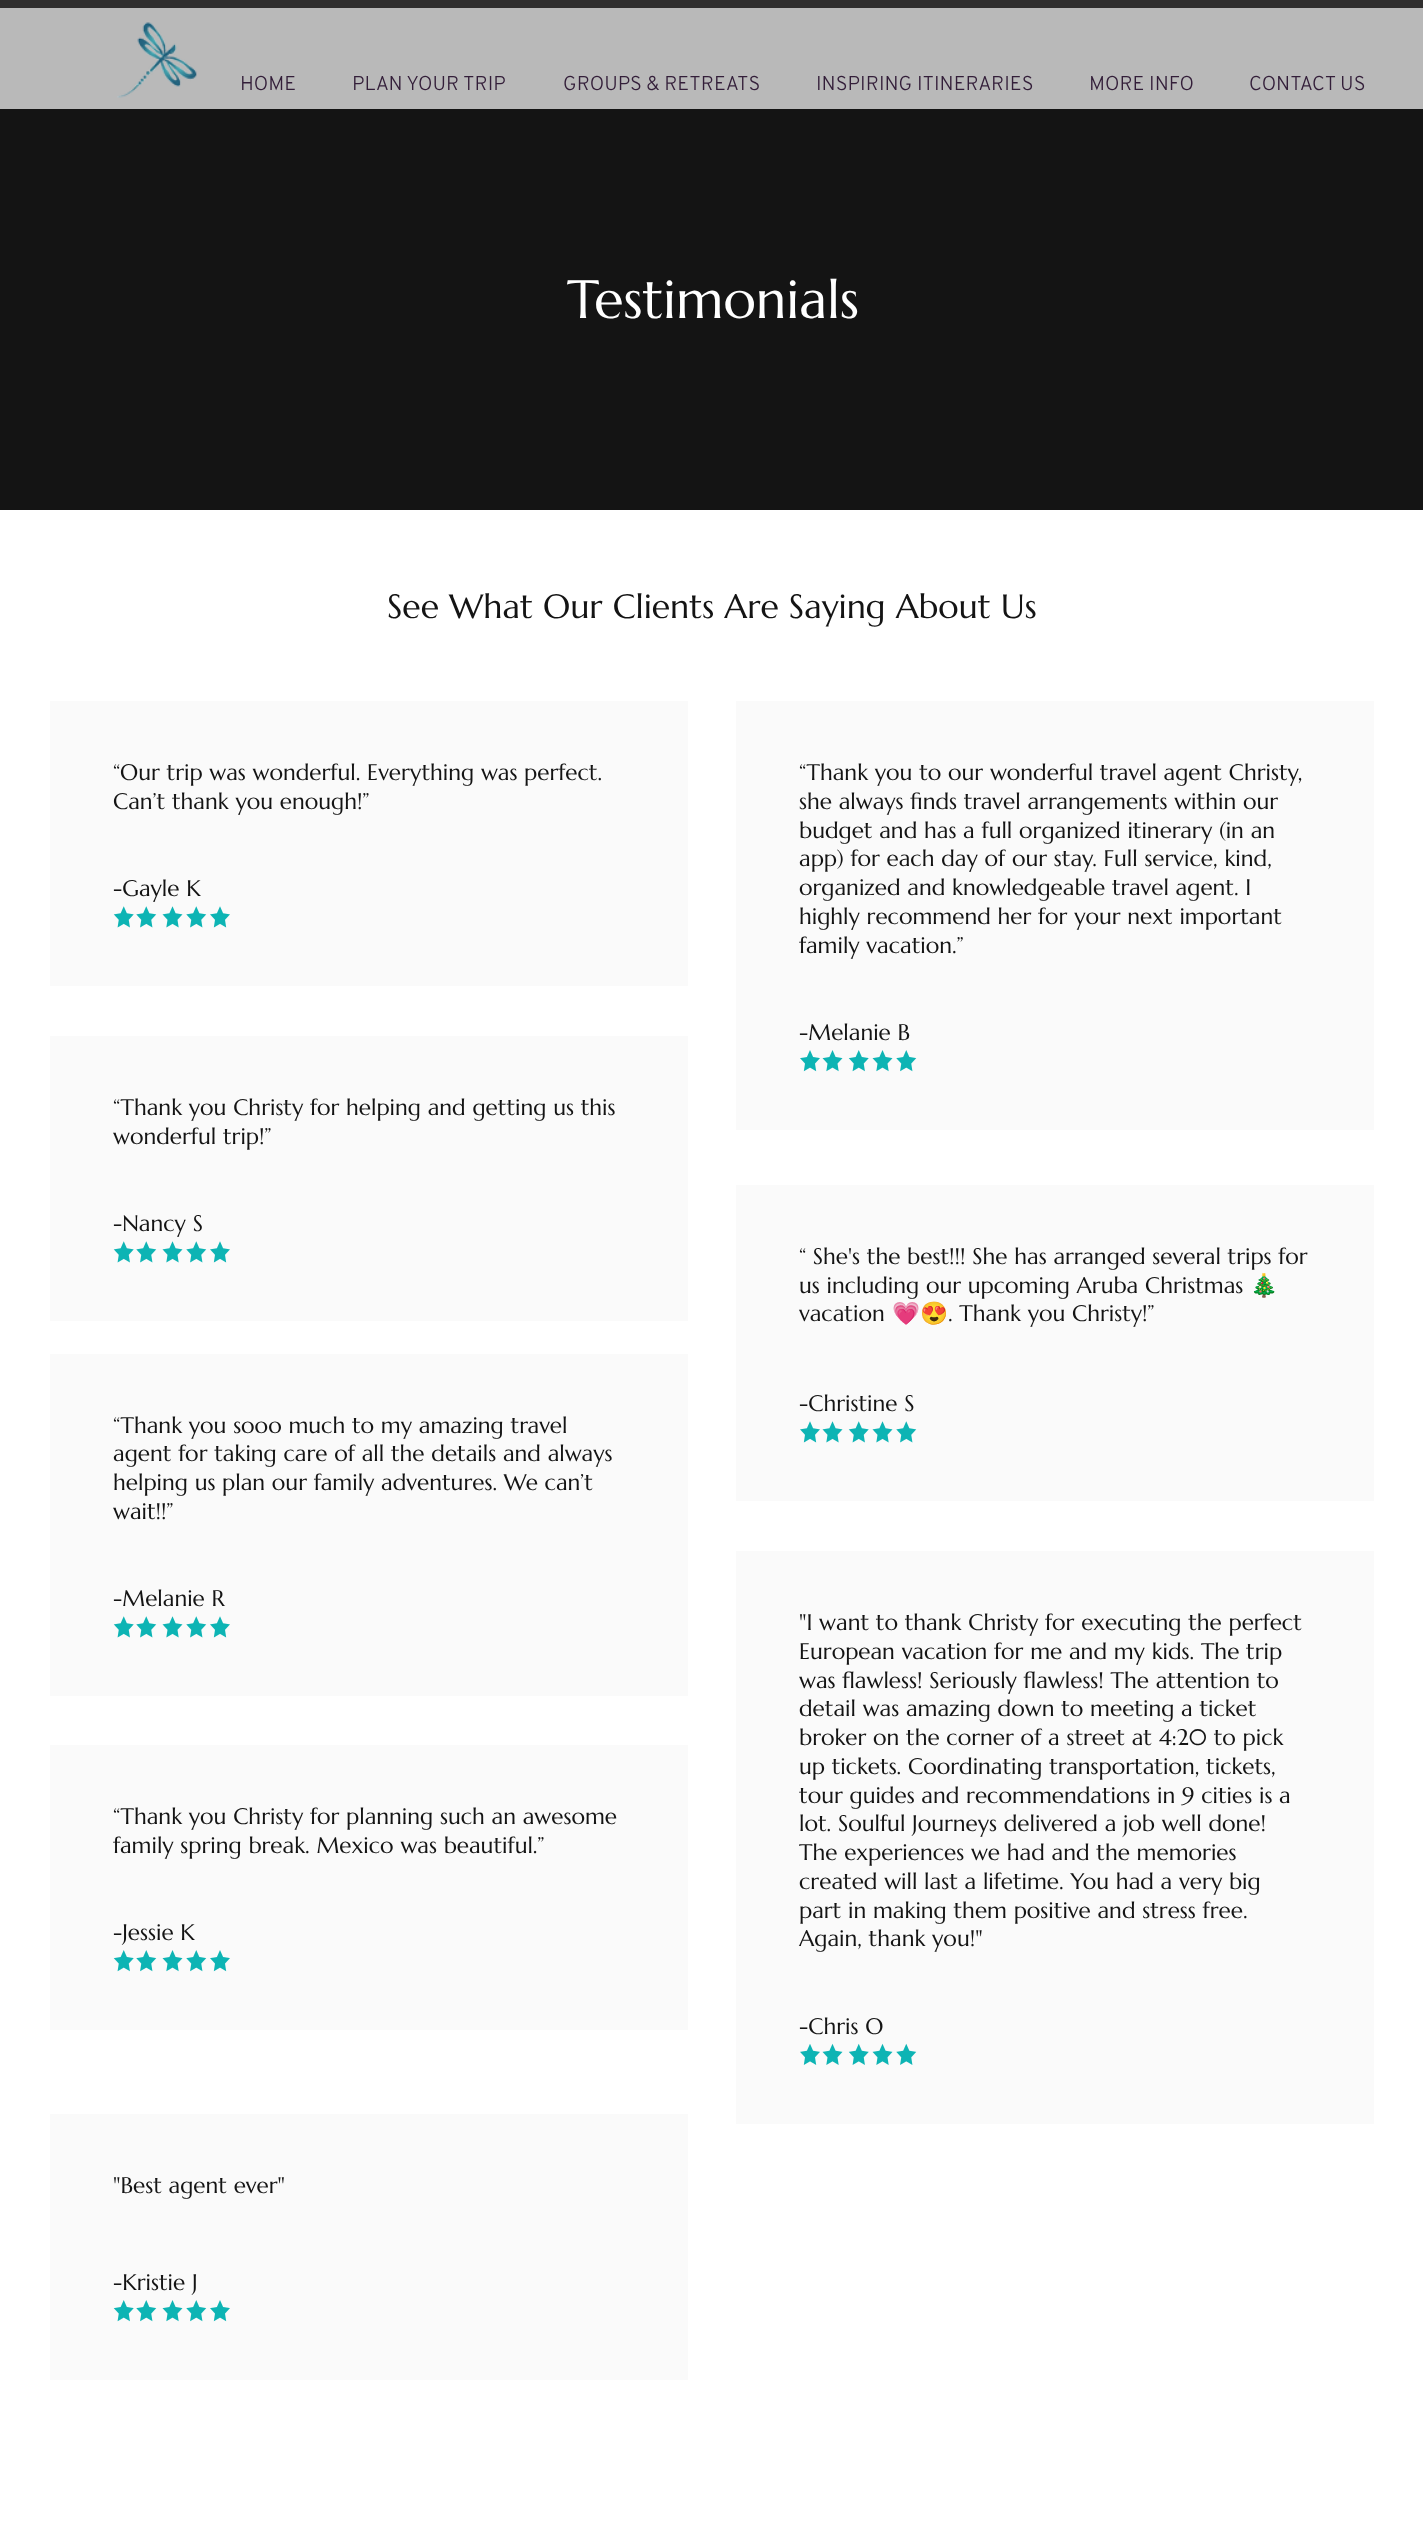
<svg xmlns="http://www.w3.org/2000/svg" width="1423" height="2537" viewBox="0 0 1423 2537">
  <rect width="100%" height="100%" fill="#ffffff"/>
  <rect x="0" y="0" width="1423" height="8" fill="#2f2e2e"/>
  <rect x="0" y="8" width="1423" height="101" fill="#b9b9b9"/>
  <image x="117" y="22" width="80" height="76" href="img1.png"/>
  <text x="240" y="90" font-family="Overpass" font-size="20" font-weight="300" fill="#331e39">HOME</text>
  <text x="352" y="90" font-family="Overpass" font-size="20" font-weight="300" fill="#331e39">PLAN YOUR TRIP</text>
  <text x="563" y="90" font-family="Overpass" font-size="20" font-weight="300" fill="#331e39">GROUPS &amp; RETREATS</text>
  <text x="816" y="90" font-family="Overpass" font-size="20" font-weight="300" fill="#331e39">INSPIRING ITINERARIES</text>
  <text x="1089" y="90" font-family="Overpass" font-size="20" font-weight="300" fill="#331e39">MORE INFO</text>
  <text x="1249" y="90" font-family="Overpass" font-size="20" font-weight="300" fill="#331e39">CONTACT US</text>
  <rect x="0" y="109" width="1423" height="401" fill="#141414"/>
  <text x="567" y="318" font-family="Marcellus" font-size="53.75" fill="#ffffff">Testimonials</text>
  <text x="387" y="618" font-family="Marcellus" font-size="33.75" fill="#141414">See What Our Clients Are Saying About Us</text>
  <rect x="50" y="701" width="638" height="285" fill="#fafafa"/>
  <text x="113" y="780" font-family="Marcellus" font-size="22.5" fill="#141414">“Our trip was wonderful. Everything was perfect.</text>
  <text x="113" y="809" font-family="Marcellus" font-size="22.5" fill="#141414">Can’t thank you enough!”</text>
  <text x="113" y="896" font-family="Marcellus" font-size="22.5" fill="#141414">-Gayle K</text>
  <image x="113" y="906" width="21" height="22" href="img2.png"/>
  <image x="136" y="906" width="21" height="22" href="img3.png"/>
  <image x="162" y="906" width="21" height="22" href="img4.png"/>
  <image x="186" y="906" width="21" height="22" href="img3.png"/>
  <image x="210" y="906" width="20" height="22" href="img5.png"/>
  <rect x="736" y="701" width="638" height="429" fill="#fafafa"/>
  <text x="799" y="780" font-family="Marcellus" font-size="22.5" fill="#141414">“Thank you to our wonderful travel agent Christy,</text>
  <text x="799" y="809" font-family="Marcellus" font-size="22.5" fill="#141414">she always finds travel arrangements within our</text>
  <text x="799" y="838" font-family="Marcellus" font-size="22.5" fill="#141414">budget and has a full organized itinerary (in an</text>
  <text x="799" y="866" font-family="Marcellus" font-size="22.5" fill="#141414">app) for each day of our stay. Full service, kind,</text>
  <text x="799" y="895" font-family="Marcellus" font-size="22.5" fill="#141414">organized and knowledgeable travel agent. I</text>
  <text x="799" y="924" font-family="Marcellus" font-size="22.5" fill="#141414">highly recommend her for your next important</text>
  <text x="799" y="953" font-family="Marcellus" font-size="22.5" fill="#141414">family vacation.”</text>
  <text x="799" y="1040" font-family="Marcellus" font-size="22.5" fill="#141414">-Melanie B</text>
  <image x="800" y="1050" width="20" height="22" href="img6.png"/>
  <image x="822" y="1050" width="21" height="22" href="img7.png"/>
  <image x="848" y="1050" width="21" height="22" href="img8.png"/>
  <image x="872" y="1050" width="21" height="22" href="img7.png"/>
  <image x="896" y="1050" width="21" height="22" href="img9.png"/>
  <rect x="50" y="1036" width="638" height="285" fill="#fafafa"/>
  <text x="113" y="1115" font-family="Marcellus" font-size="22.5" fill="#141414">“Thank you Christy for helping and getting us this</text>
  <text x="113" y="1144" font-family="Marcellus" font-size="22.5" fill="#141414">wonderful trip!”</text>
  <text x="113" y="1231" font-family="Marcellus" font-size="22.5" fill="#141414">-Nancy S</text>
  <image x="113" y="1241" width="21" height="22" href="img2.png"/>
  <image x="136" y="1241" width="21" height="22" href="img3.png"/>
  <image x="162" y="1241" width="21" height="22" href="img4.png"/>
  <image x="186" y="1241" width="21" height="22" href="img3.png"/>
  <image x="210" y="1241" width="20" height="22" href="img5.png"/>
  <rect x="736" y="1185" width="638" height="316" fill="#fafafa"/>
  <text x="799" y="1264" font-family="Marcellus" font-size="22.5" fill="#141414">“ She's the best!!! She has arranged several trips for</text>
  <text x="799" y="1293" font-family="Marcellus" font-size="22.5" fill="#141414">us including our upcoming Aruba Christmas</text>
  <text x="1250" y="1293" font-family="Noto Color Emoji" font-size="22.5" fill="#141414">🎄</text>
  <text x="799" y="1321" font-family="Marcellus" font-size="22.5" fill="#141414">vacation</text>
  <text x="892" y="1321" font-family="Noto Color Emoji" font-size="22.5" fill="#141414">💗😍</text>
  <text x="948" y="1321" font-family="Marcellus" font-size="22.5" fill="#141414">. Thank you Christy!”</text>
  <text x="799" y="1411" font-family="Marcellus" font-size="22.5" fill="#141414">-Christine S</text>
  <image x="800" y="1421" width="20" height="22" href="img5.png"/>
  <image x="822" y="1421" width="21" height="22" href="img4.png"/>
  <image x="848" y="1421" width="21" height="22" href="img2.png"/>
  <image x="872" y="1421" width="21" height="22" href="img4.png"/>
  <image x="896" y="1421" width="21" height="22" href="img3.png"/>
  <rect x="50" y="1354" width="638" height="342" fill="#fafafa"/>
  <text x="113" y="1433" font-family="Marcellus" font-size="22.5" fill="#141414">“Thank you sooo much to my amazing travel</text>
  <text x="113" y="1461" font-family="Marcellus" font-size="22.5" fill="#141414">agent for taking care of all the details and always</text>
  <text x="113" y="1490" font-family="Marcellus" font-size="22.5" fill="#141414">helping us plan our family adventures. We can’t</text>
  <text x="113" y="1519" font-family="Marcellus" font-size="22.5" fill="#141414">wait!!”</text>
  <text x="113" y="1606" font-family="Marcellus" font-size="22.5" fill="#141414">-Melanie R</text>
  <image x="113" y="1616" width="21" height="22" href="img2.png"/>
  <image x="136" y="1616" width="21" height="22" href="img3.png"/>
  <image x="162" y="1616" width="21" height="22" href="img4.png"/>
  <image x="186" y="1616" width="21" height="22" href="img3.png"/>
  <image x="210" y="1616" width="20" height="22" href="img5.png"/>
  <rect x="50" y="1745" width="638" height="285" fill="#fafafa"/>
  <text x="113" y="1824" font-family="Marcellus" font-size="22.5" fill="#141414">“Thank you Christy for planning such an awesome</text>
  <text x="113" y="1853" font-family="Marcellus" font-size="22.5" fill="#141414">family spring break. Mexico was beautiful.”</text>
  <text x="113" y="1940" font-family="Marcellus" font-size="22.5" fill="#141414">-Jessie K</text>
  <image x="113" y="1950" width="21" height="22" href="img8.png"/>
  <image x="136" y="1950" width="21" height="22" href="img9.png"/>
  <image x="162" y="1950" width="21" height="22" href="img7.png"/>
  <image x="186" y="1950" width="21" height="22" href="img9.png"/>
  <image x="210" y="1950" width="20" height="22" href="img6.png"/>
  <rect x="736" y="1551" width="638" height="573" fill="#fafafa"/>
  <text x="799" y="1630" font-family="Marcellus" font-size="22.5" fill="#141414">"I want to thank Christy for executing the perfect</text>
  <text x="799" y="1659" font-family="Marcellus" font-size="22.5" fill="#141414">European vacation for me and my kids. The trip</text>
  <text x="799" y="1688" font-family="Marcellus" font-size="22.5" fill="#141414">was flawless! Seriously flawless! The attention to</text>
  <text x="799" y="1716" font-family="Marcellus" font-size="22.5" fill="#141414">detail was amazing down to meeting a ticket</text>
  <text x="799" y="1745" font-family="Marcellus" font-size="22.5" fill="#141414">broker on the corner of a street at 4:20 to pick</text>
  <text x="799" y="1774" font-family="Marcellus" font-size="22.5" fill="#141414">up tickets. Coordinating transportation, tickets,</text>
  <text x="799" y="1803" font-family="Marcellus" font-size="22.5" fill="#141414">tour guides and recommendations in 9 cities is a</text>
  <text x="799" y="1831" font-family="Marcellus" font-size="22.5" fill="#141414">lot. Soulful Journeys delivered a job well done!</text>
  <text x="799" y="1860" font-family="Marcellus" font-size="22.5" fill="#141414">The experiences we had and the memories</text>
  <text x="799" y="1889" font-family="Marcellus" font-size="22.5" fill="#141414">created will last a lifetime. You had a very big</text>
  <text x="799" y="1918" font-family="Marcellus" font-size="22.5" fill="#141414">part in making them positive and stress free.</text>
  <text x="799" y="1946" font-family="Marcellus" font-size="22.5" fill="#141414">Again, thank you!"</text>
  <text x="799" y="2034" font-family="Marcellus" font-size="22.5" fill="#141414">-Chris O</text>
  <image x="800" y="2044" width="20" height="21" href="img10.png"/>
  <image x="822" y="2043" width="21" height="22" href="img11.png"/>
  <image x="848" y="2043" width="21" height="22" href="img12.png"/>
  <image x="872" y="2043" width="21" height="22" href="img11.png"/>
  <image x="896" y="2043" width="21" height="22" href="img13.png"/>
  <rect x="50" y="2114" width="638" height="266" fill="#fafafa"/>
  <text x="113" y="2193" font-family="Marcellus" font-size="22.5" fill="#141414">"Best agent ever"</text>
  <text x="113" y="2290" font-family="Marcellus" font-size="22.5" fill="#141414">-Kristie J</text>
  <image x="113" y="2300" width="21" height="22" href="img8.png"/>
  <image x="136" y="2300" width="21" height="22" href="img9.png"/>
  <image x="162" y="2300" width="21" height="22" href="img7.png"/>
  <image x="186" y="2300" width="21" height="22" href="img9.png"/>
  <image x="210" y="2300" width="20" height="22" href="img6.png"/>
</svg>
